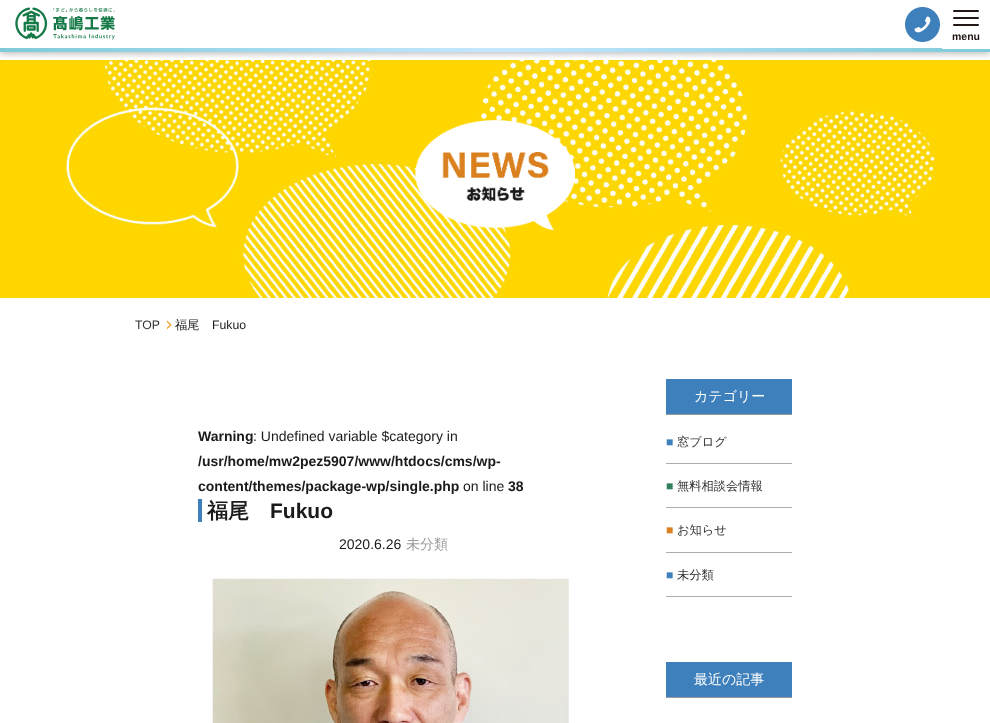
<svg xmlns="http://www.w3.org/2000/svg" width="990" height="723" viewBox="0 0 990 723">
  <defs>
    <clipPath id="clip1"><rect x="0" y="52" width="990" height="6"/></clipPath>
    <filter id="blur1" x="-50%" y="-200%" width="200%" height="500%"><feGaussianBlur stdDeviation="3"/></filter>
    <linearGradient id="g1" gradientUnits="userSpaceOnUse" x1="0" y1="50" x2="990" y2="50"><stop offset="0" stop-color="#7ecbd8"/><stop offset="0.5" stop-color="#c4e7ff"/><stop offset="1" stop-color="#7ecbd8"/></linearGradient>
  </defs>
  <rect width="100%" height="100%" fill="#ffffff"/>
  <image x="0" y="60" width="990" height="238" href="img3.png"/>
  <g clip-path="url(#clip1)">
    <rect x="0" y="2" width="990" height="52" fill="#000000" fill-opacity="0.25" filter="url(#blur1)"/>
  </g>
  <image x="15" y="7" width="100" height="33" href="img1.png"/>
  <image x="905" y="7" width="35" height="35" href="img2.png"/>
  <rect x="0" y="48" width="990" height="4" fill="url(#g1)"/>
  <rect x="942" y="48" width="48" height="1" fill="#ffffff"/>
  <rect x="953" y="10" width="26" height="2" rx="1" fill="#231815"/>
  <rect x="953" y="17" width="26" height="2" rx="1" fill="#231815"/>
  <rect x="953" y="24" width="26" height="2" rx="1" fill="#231815"/>
  <text x="952" y="40" font-family="Liberation Sans" font-size="10.5" font-weight="bold" fill="#231815">menu</text>
  <image x="415" y="120" width="160" height="110" href="img4.png"/>
  <text x="135" y="329" font-family="Liberation Sans" font-size="12.25" fill="#333333">TOP</text>
  <image x="166" y="320" width="6" height="9" href="img5.png"/>
  <text x="175" y="329" font-family="WenQuanYi Zen Hei" font-size="12.25" font-weight="500" fill="#1a1a1a">福尾</text>
  <text x="212" y="329" font-family="Liberation Sans" font-size="12.25" fill="#1a1a1a">Fukuo</text>
  <text x="198" y="441" font-family="Liberation Sans" font-size="14" font-weight="bold" fill="#1a1a1a">Warning</text>
  <text x="253" y="441" font-family="Liberation Sans" font-size="14" fill="#1a1a1a">: Undefined variable $category in</text>
  <text x="198" y="466" font-family="Liberation Sans" font-size="14" font-weight="bold" fill="#1a1a1a">/usr/home/mw2pez5907/www/htdocs/cms/wp-</text>
  <text x="198" y="491" font-family="Liberation Sans" font-size="14" font-weight="bold" fill="#1a1a1a">content/themes/package-wp/single.php</text>
  <text x="463" y="491" font-family="Liberation Sans" font-size="14" fill="#1a1a1a">on line</text>
  <text x="508" y="491" font-family="Liberation Sans" font-size="14" font-weight="bold" fill="#1a1a1a">38</text>
  <rect x="198" y="499" width="4" height="23" fill="#3d80bb"/>
  <text x="207" y="518" font-family="WenQuanYi Zen Hei" font-size="21" font-weight="bold" fill="#1a1a1a">福尾</text>
  <text x="270" y="518" font-family="Liberation Sans" font-size="21" font-weight="bold" fill="#1a1a1a">Fukuo</text>
  <text x="339" y="549" font-family="Liberation Sans" font-size="14" fill="#1a1a1a">2020.6.26</text>
  <text x="406" y="549" font-family="WenQuanYi Zen Hei" font-size="14" font-weight="500" fill="#999999">未分類</text>
  <image x="212" y="578" width="357" height="145" href="img6.png"/>
  <rect x="666" y="379" width="126" height="35" fill="#3d80bb"/>
  <rect x="666" y="414" width="126" height="1" fill="#999999"/>
  <text x="694" y="401" font-family="WenQuanYi Zen Hei" font-size="14" font-weight="500" fill="#ffffff">カテゴリー</text>
  <rect x="666" y="463" width="126" height="1" fill="#adaeae"/>
  <text x="666" y="446" font-family="Liberation Sans" font-size="12.25" fill="#3d80bb">■</text>
  <text x="677" y="446" font-family="WenQuanYi Zen Hei" font-size="12.25" font-weight="500" fill="#333333">窓ブログ</text>
  <rect x="666" y="507" width="126" height="1" fill="#adaeae"/>
  <text x="666" y="490" font-family="Liberation Sans" font-size="12.25" fill="#33805d">■</text>
  <text x="677" y="490" font-family="WenQuanYi Zen Hei" font-size="12.25" font-weight="500" fill="#333333">無料相談会情報</text>
  <rect x="666" y="552" width="126" height="1" fill="#adaeae"/>
  <text x="666" y="534" font-family="Liberation Sans" font-size="12.25" fill="#da801e">■</text>
  <text x="677" y="534" font-family="WenQuanYi Zen Hei" font-size="12.25" font-weight="500" fill="#333333">お知らせ</text>
  <rect x="666" y="596" width="126" height="1" fill="#adaeae"/>
  <text x="666" y="579" font-family="Liberation Sans" font-size="12.25" fill="#3d80bb">■</text>
  <text x="677" y="579" font-family="WenQuanYi Zen Hei" font-size="12.25" font-weight="500" fill="#333333">未分類</text>
  <rect x="666" y="662" width="126" height="35" fill="#3d80bb"/>
  <rect x="666" y="697" width="126" height="1" fill="#999999"/>
  <text x="694" y="684" font-family="WenQuanYi Zen Hei" font-size="14" font-weight="500" fill="#ffffff">最近の記事</text>
</svg>
